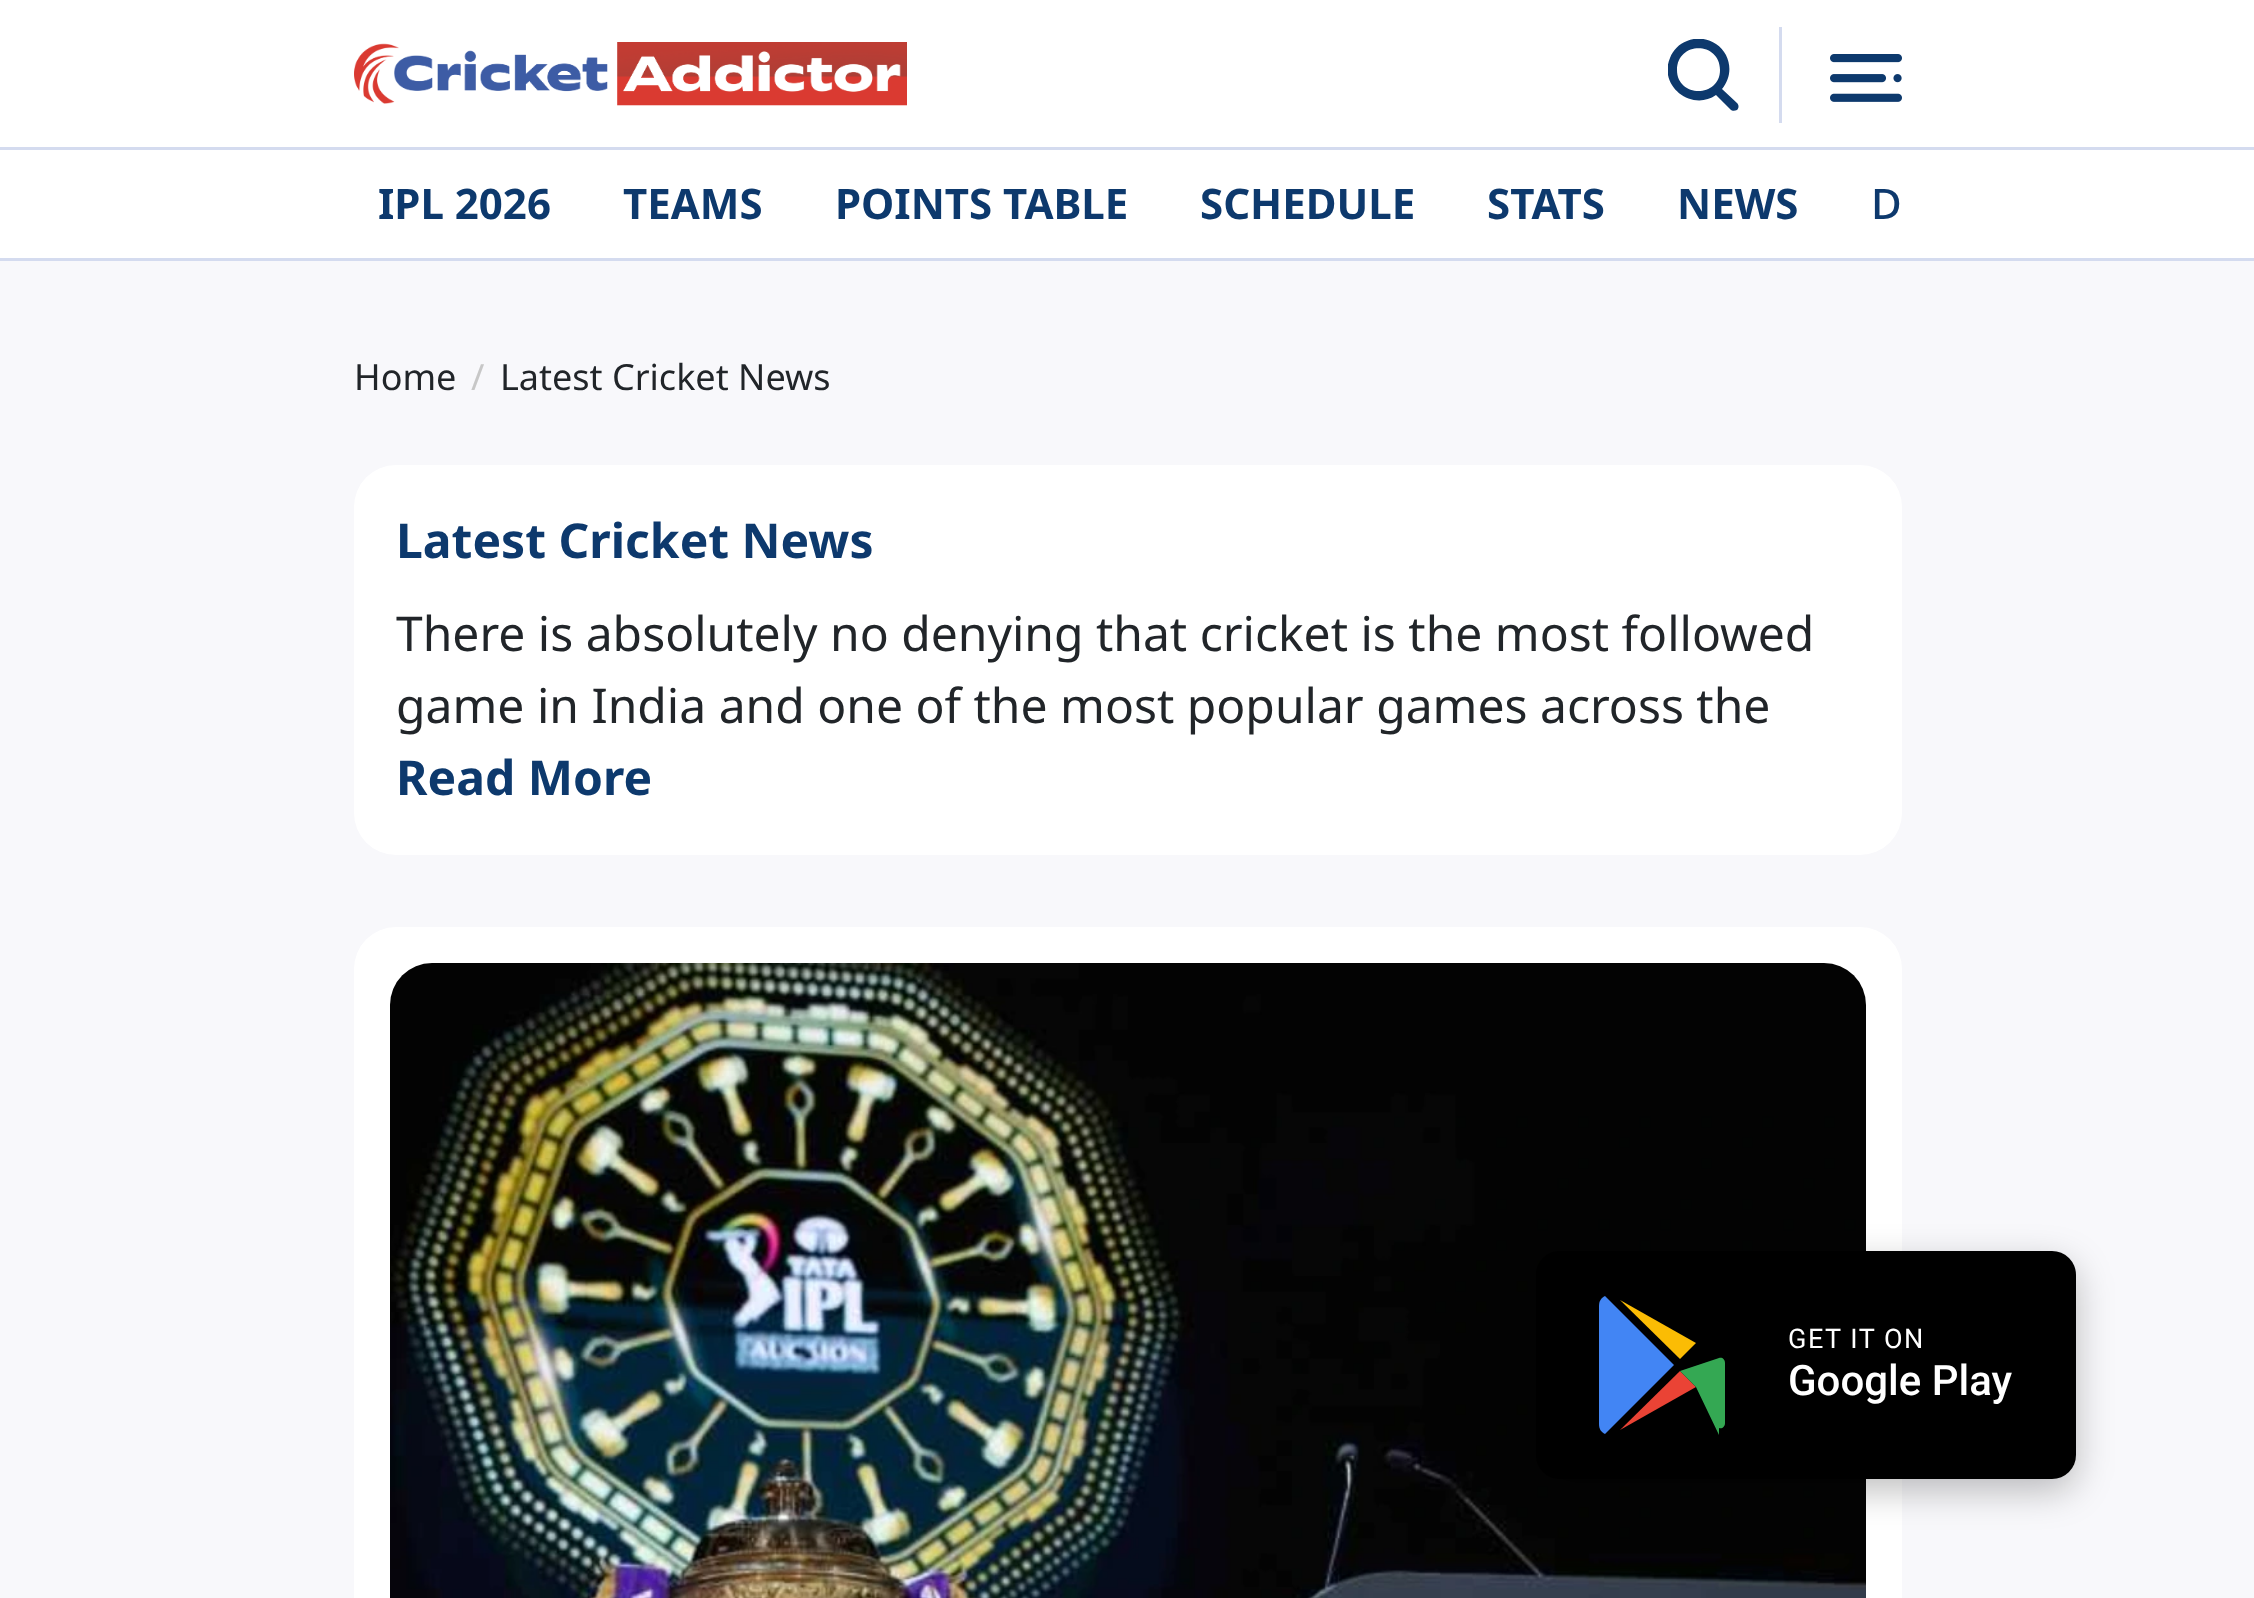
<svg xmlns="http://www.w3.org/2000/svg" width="2254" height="1598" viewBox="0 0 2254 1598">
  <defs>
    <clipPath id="clip1"><rect x="1668" y="39" width="72" height="72"/></clipPath>
    <filter id="blur1" x="-50%" y="-200%" width="200%" height="500%"><feGaussianBlur stdDeviation="18"/></filter>
  </defs>
  <rect width="100%" height="100%" fill="#f8f8fb"/>
  <rect x="0" y="0" width="2254" height="147" fill="#ffffff"/>
  <rect x="0" y="147" width="2254" height="3" fill="#d4dbef"/>
  <image x="354" y="42" width="553" height="64" href="img1.png"/>
  <g clip-path="url(#clip1)">
    <path d="M1716 95C1692 112 1658 86 1670 58C1673 50 1679 44 1687 41C1696 37 1707 38 1716 44C1731 54 1734 75 1722 89L1737 103C1739 105 1739 108 1737 110C1735 111 1732 111 1731 110ZM1720 70C1720 98 1677 98 1677 70C1677 41 1720 41 1720 70Z" fill="#0d396d" fill-rule="evenodd"/>
  </g>
  <rect x="1779" y="27" width="3" height="96" fill="#d4dbef"/>
  <image x="1830" y="54" width="72" height="48" href="img2.png"/>
  <rect x="0" y="150" width="2254" height="108" fill="#ffffff"/>
  <rect x="0" y="258" width="2254" height="3" fill="#d4dbef"/>
  <text x="378" y="219" font-family="Noto Sans" font-size="42" font-weight="bold" fill="#0d396d">IPL 2026</text>
  <text x="623" y="219" font-family="Noto Sans" font-size="42" font-weight="bold" fill="#0d396d">TEAMS</text>
  <text x="835" y="219" font-family="Noto Sans" font-size="42" font-weight="bold" fill="#0d396d">POINTS TABLE</text>
  <text x="1200" y="219" font-family="Noto Sans" font-size="42" font-weight="bold" fill="#0d396d">SCHEDULE</text>
  <text x="1487" y="219" font-family="Noto Sans" font-size="42" font-weight="bold" fill="#0d396d">STATS</text>
  <text x="1677" y="219" font-family="Noto Sans" font-size="42" font-weight="bold" fill="#0d396d">NEWS</text>
  <text x="1871" y="219" font-family="Noto Sans" font-size="42" font-weight="500" fill="#0d396d">D</text>
  <text x="354" y="390" font-family="Noto Sans" font-size="36" fill="#212529">Home</text>
  <text x="471" y="390" font-family="Noto Sans" font-size="36" fill="#c7c7c7">/</text>
  <text x="500" y="390" font-family="Noto Sans" font-size="36" fill="#212529">Latest Cricket News</text>
  <rect x="354" y="465" width="1548" height="390" rx="42" fill="#ffffff"/>
  <text x="396" y="558" font-family="Noto Sans" font-size="48" font-weight="bold" fill="#0d396d">Latest Cricket News</text>
  <text x="396" y="651" font-family="Noto Sans" font-size="48" fill="#212529">There is absolutely no denying that cricket is the most followed</text>
  <text x="396" y="723" font-family="Noto Sans" font-size="48" fill="#212529">game in India and one of the most popular games across the</text>
  <text x="396" y="795" font-family="Noto Sans" font-size="48" font-weight="bold" fill="#0d396d">Read More</text>
  <rect x="354" y="927" width="1548" height="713" rx="42" fill="#ffffff"/>
  <image x="390" y="963" width="1476" height="635" href="img3.png"/>
  <rect x="1536" y="1263" width="540" height="228" rx="24" fill="#000000" fill-opacity="0.25" filter="url(#blur1)"/>
  <rect x="1536" y="1251" width="540" height="228" rx="24" fill="#000000"/>
  <path d="M1599 1424V1306C1599 1301 1601 1298 1605 1296L1674 1365L1605 1434C1601 1432 1599 1429 1599 1424Z" fill="#4285f4"/>
  <path d="M1696 1387L1620 1430L1680 1371Z" fill="#ea4335"/>
  <path d="M1680 1359L1620 1300L1696 1343Z" fill="#fbbc04"/>
  <path d="M1719 1435L1696 1387L1680 1371L1719 1358C1722 1357 1725 1359 1725 1363V1423C1725 1427 1722 1429 1719 1428Z" fill="#34a853"/>
  <text x="1788" y="1348" font-family="Roboto" font-size="27" letter-spacing="1.5" fill="#ffffff">GET IT ON</text>
  <text x="1788" y="1395" font-family="Roboto" font-size="42" font-weight="500" fill="#ffffff">Google Play</text>
</svg>
